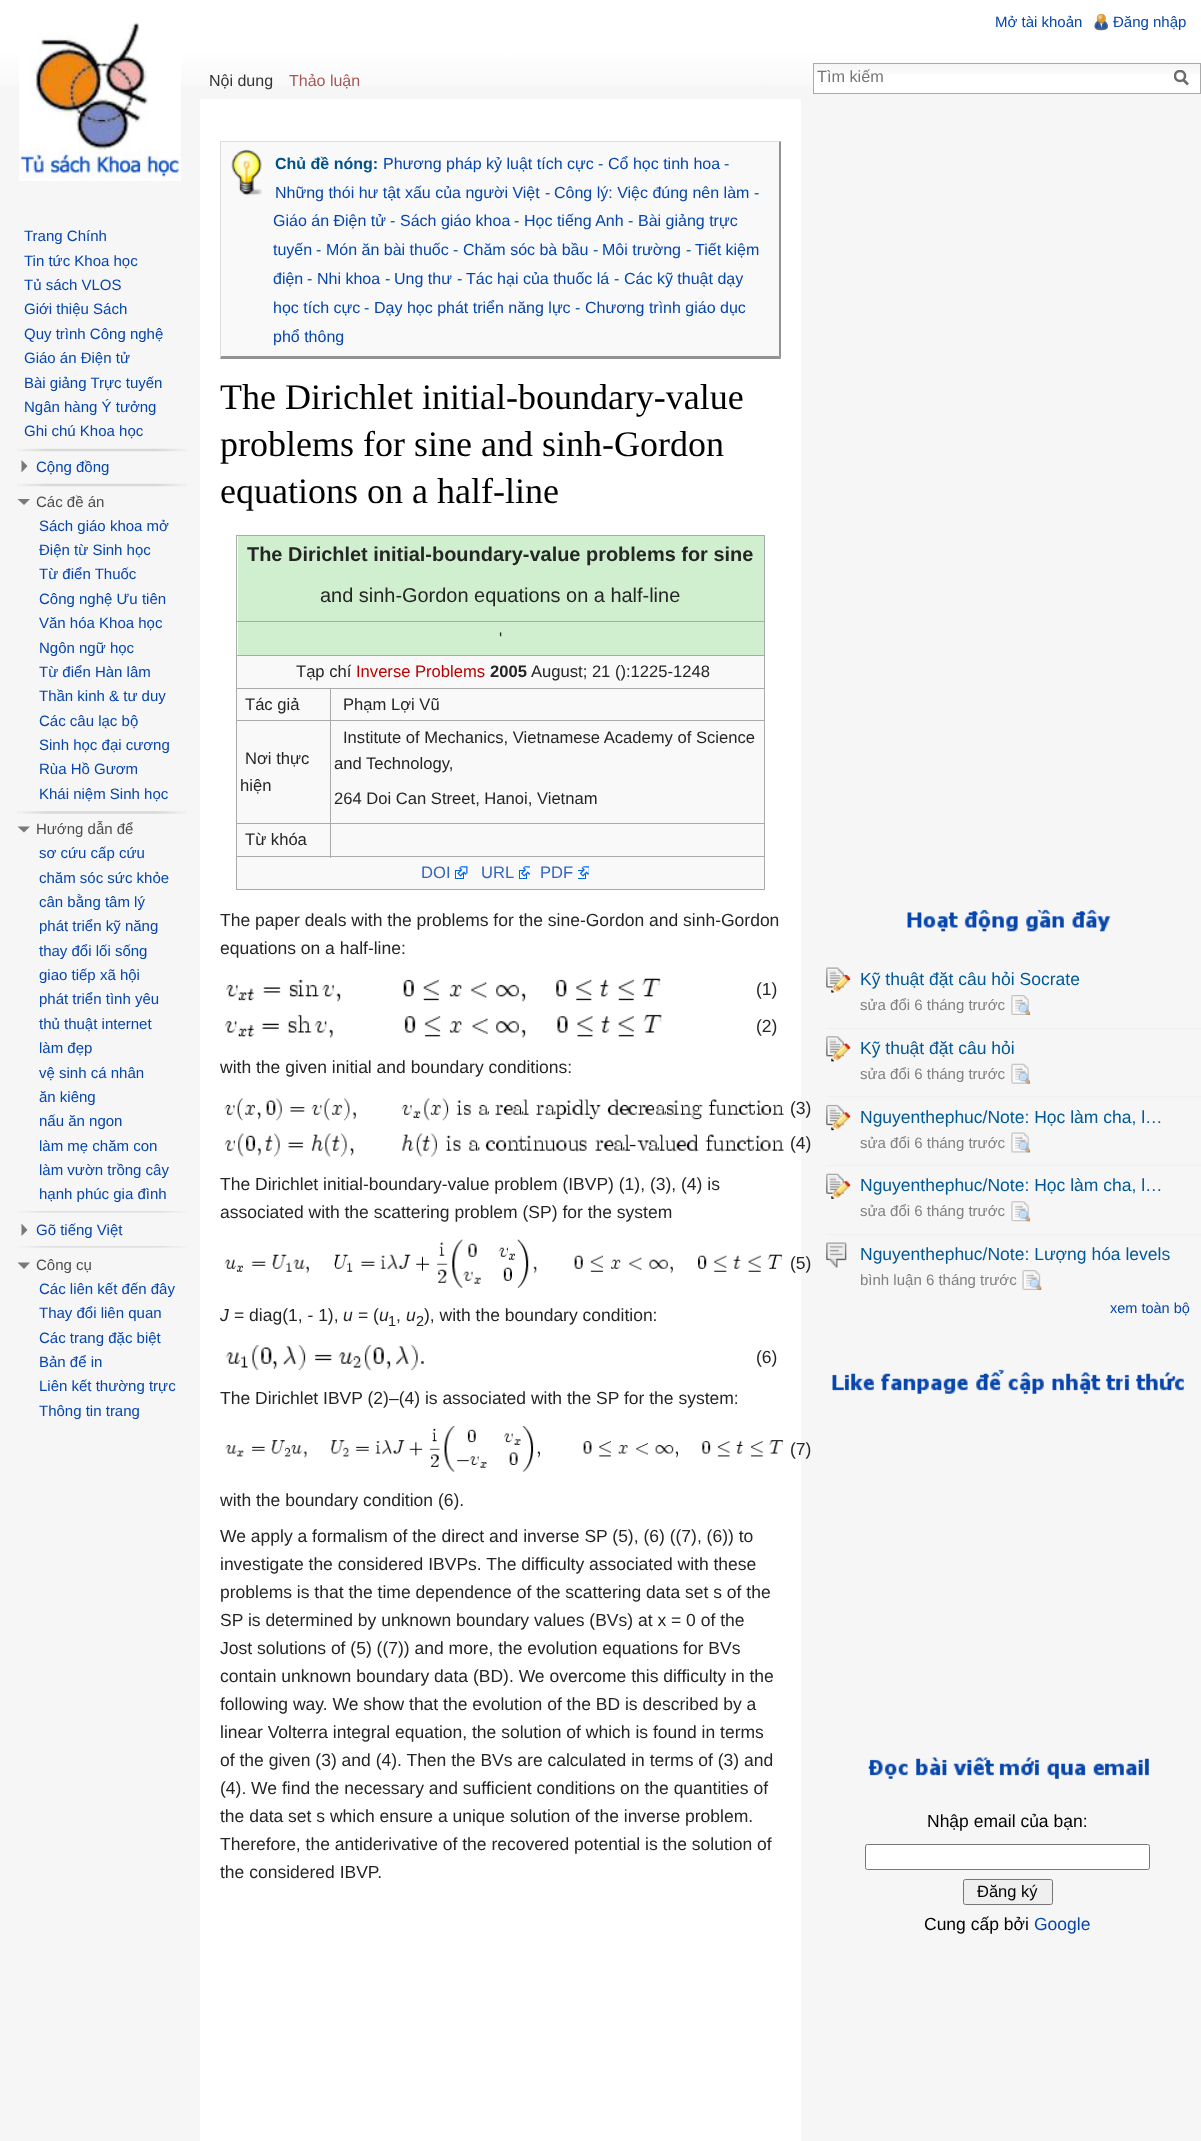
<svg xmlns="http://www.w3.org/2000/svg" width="1201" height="2141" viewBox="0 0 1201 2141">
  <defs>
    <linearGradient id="g1" gradientUnits="userSpaceOnUse" x1="601" y1="0" x2="601" y2="100"><stop offset="0.5" stop-color="#ffffff"/><stop offset="1" stop-color="#f6f6f6"/></linearGradient>
    <clipPath id="clip1"><rect x="1174" y="70" width="15" height="16"/></clipPath>
  </defs>
  <rect width="100%" height="100%" fill="#f6f6f6"/>
  <rect x="0" y="0" width="1201" height="86" fill="url(#g1)"/>
  <text x="995" y="27" font-family="Liberation Sans" font-size="15" fill="#0645ad">Mở tài khoản</text>
  <image x="1094" y="14" width="14" height="17" href="img1.png"/>
  <text x="1113" y="27" font-family="Liberation Sans" font-size="15" fill="#0645ad">Đăng nhập</text>
  <text x="209" y="86" font-family="Liberation Sans" font-size="16" fill="#333333">Nội dung</text>
  <text x="289" y="86" font-family="Liberation Sans" font-size="16" fill="#a55858">Thảo luận</text>
  <rect x="814" y="74" width="386" height="19" fill="#ffffff"/>
  <image x="814" y="64" width="386" height="10" href="img2.png"/>
  <rect x="813.5" y="63.5" width="387" height="30" fill="none" stroke="#aaaaaa"/>
  <text x="817" y="82" font-family="Liberation Sans" font-size="16.25" fill="#757575">Tìm kiếm</text>
  <path d="M1188 84.5L1183 79.5" fill="none" stroke="#6c6c6c" stroke-width="2.5"/>
  <g clip-path="url(#clip1)">
    <circle cx="1180" cy="76" r="5" fill="none" stroke="#6c6c6c" stroke-width="2.5"/>
  </g>
  <image x="19" y="22" width="162" height="159" href="img3.png"/>
  <text x="24" y="241" font-family="Liberation Sans" font-size="15" fill="#0645ad">Trang Chính</text>
  <text x="24" y="266" font-family="Liberation Sans" font-size="15" fill="#0645ad">Tin tức Khoa học</text>
  <text x="24" y="290" font-family="Liberation Sans" font-size="15" fill="#0645ad">Tủ sách VLOS</text>
  <text x="24" y="314" font-family="Liberation Sans" font-size="15" fill="#0645ad">Giới thiệu Sách</text>
  <text x="24" y="339" font-family="Liberation Sans" font-size="15" fill="#0645ad">Quy trình Công nghệ</text>
  <text x="24" y="363" font-family="Liberation Sans" font-size="15" fill="#0645ad">Giáo án Điện tử</text>
  <text x="24" y="388" font-family="Liberation Sans" font-size="15" fill="#0645ad">Bài giảng Trực tuyến</text>
  <text x="24" y="412" font-family="Liberation Sans" font-size="15" fill="#0645ad">Ngân hàng Ý tưởng</text>
  <text x="24" y="436" font-family="Liberation Sans" font-size="15" fill="#0645ad">Ghi chú Khoa học</text>
  <image x="17" y="448" width="170" height="4" href="img4.png"/>
  <path d="M21.5 460L27.5 466L21.5 472.5Z" fill="#797979"/>
  <text x="36" y="472" font-family="Liberation Sans" font-size="15" fill="#0645ad">Cộng đồng</text>
  <image x="17" y="483" width="170" height="4" href="img4.png"/>
  <path d="M30 499L24 505L17.5 499Z" fill="#797979"/>
  <text x="36" y="507" font-family="Liberation Sans" font-size="15" fill="#4d4d4d">Các đề án</text>
  <text x="39" y="531" font-family="Liberation Sans" font-size="15" fill="#0645ad">Sách giáo khoa mở</text>
  <text x="39" y="555" font-family="Liberation Sans" font-size="15" fill="#0645ad">Điện từ Sinh học</text>
  <text x="39" y="579" font-family="Liberation Sans" font-size="15" fill="#0645ad">Từ điển Thuốc</text>
  <text x="39" y="604" font-family="Liberation Sans" font-size="15" fill="#0645ad">Công nghệ Ưu tiên</text>
  <text x="39" y="628" font-family="Liberation Sans" font-size="15" fill="#0645ad">Văn hóa Khoa học</text>
  <text x="39" y="653" font-family="Liberation Sans" font-size="15" fill="#0645ad">Ngôn ngữ học</text>
  <text x="39" y="677" font-family="Liberation Sans" font-size="15" fill="#0645ad">Từ điển Hàn lâm</text>
  <text x="39" y="701" font-family="Liberation Sans" font-size="15" fill="#0645ad">Thần kinh &amp; tư duy</text>
  <text x="39" y="726" font-family="Liberation Sans" font-size="15" fill="#0645ad">Các câu lạc bộ</text>
  <text x="39" y="750" font-family="Liberation Sans" font-size="15" fill="#0645ad">Sinh học đại cương</text>
  <text x="39" y="774" font-family="Liberation Sans" font-size="15" fill="#0645ad">Rùa Hồ Gươm</text>
  <text x="39" y="799" font-family="Liberation Sans" font-size="15" fill="#0645ad">Khái niệm Sinh học</text>
  <image x="17" y="811" width="170" height="3" href="img5.png"/>
  <path d="M30 826.5L24 832.5L17.5 826.5Z" fill="#797979"/>
  <text x="36" y="834" font-family="Liberation Sans" font-size="15" fill="#4d4d4d">Hướng dẫn để</text>
  <text x="39" y="858" font-family="Liberation Sans" font-size="15" fill="#0645ad">sơ cứu cấp cứu</text>
  <text x="39" y="883" font-family="Liberation Sans" font-size="15" fill="#0645ad">chăm sóc sức khỏe</text>
  <text x="39" y="907" font-family="Liberation Sans" font-size="15" fill="#0645ad">cân bằng tâm lý</text>
  <text x="39" y="931" font-family="Liberation Sans" font-size="15" fill="#0645ad">phát triển kỹ năng</text>
  <text x="39" y="956" font-family="Liberation Sans" font-size="15" fill="#0645ad">thay đổi lối sống</text>
  <text x="39" y="980" font-family="Liberation Sans" font-size="15" fill="#0645ad">giao tiếp xã hội</text>
  <text x="39" y="1004" font-family="Liberation Sans" font-size="15" fill="#0645ad">phát triển tình yêu</text>
  <text x="39" y="1029" font-family="Liberation Sans" font-size="15" fill="#0645ad">thủ thuật internet</text>
  <text x="39" y="1053" font-family="Liberation Sans" font-size="15" fill="#0645ad">làm đẹp</text>
  <text x="39" y="1078" font-family="Liberation Sans" font-size="15" fill="#0645ad">vệ sinh cá nhân</text>
  <text x="39" y="1102" font-family="Liberation Sans" font-size="15" fill="#0645ad">ăn kiêng</text>
  <text x="39" y="1126" font-family="Liberation Sans" font-size="15" fill="#0645ad">nấu ăn ngon</text>
  <text x="39" y="1151" font-family="Liberation Sans" font-size="15" fill="#0645ad">làm mẹ chăm con</text>
  <text x="39" y="1175" font-family="Liberation Sans" font-size="15" fill="#0645ad">làm vườn trồng cây</text>
  <text x="39" y="1199" font-family="Liberation Sans" font-size="15" fill="#0645ad">hạnh phúc gia đình</text>
  <image x="17" y="1211" width="170" height="2" href="img6.png"/>
  <path d="M21.5 1223.5L27.5 1230L21.5 1236Z" fill="#797979"/>
  <text x="36" y="1235" font-family="Liberation Sans" font-size="15" fill="#0645ad">Gõ tiếng Việt</text>
  <image x="17" y="1246" width="170" height="2" href="img6.png"/>
  <path d="M30 1262.5L24 1269L17.5 1262.5Z" fill="#797979"/>
  <text x="36" y="1270" font-family="Liberation Sans" font-size="15" fill="#4d4d4d">Công cụ</text>
  <text x="39" y="1294" font-family="Liberation Sans" font-size="15" fill="#0645ad">Các liên kết đến đây</text>
  <text x="39" y="1318" font-family="Liberation Sans" font-size="15" fill="#0645ad">Thay đổi liên quan</text>
  <text x="39" y="1343" font-family="Liberation Sans" font-size="15" fill="#0645ad">Các trang đặc biệt</text>
  <text x="39" y="1367" font-family="Liberation Sans" font-size="15" fill="#0645ad">Bản để in</text>
  <text x="39" y="1391" font-family="Liberation Sans" font-size="15" fill="#0645ad">Liên kết thường trực</text>
  <text x="39" y="1416" font-family="Liberation Sans" font-size="15" fill="#0645ad">Thông tin trang</text>
  <rect x="200" y="99" width="601" height="2042" fill="#ffffff"/>
  <rect x="220" y="141" width="561" height="218" fill="#f9f9f9"/>
  <path d="M220 141H781L779 142H221Z" fill="#dddddd"/>
  <path d="M781 141V359L779 356V142Z" fill="#939393"/>
  <path d="M781 359H220L221 356H779Z" fill="#939393"/>
  <path d="M220 359V141L221 142V356Z" fill="#dddddd"/>
  <image x="231" y="149" width="31" height="47" href="img7.png"/>
  <text x="275" y="169" font-family="Liberation Sans" font-size="16" font-weight="bold" fill="#005288">Chủ đề nóng:</text>
  <text x="383" y="169" font-family="Liberation Sans" font-size="16" fill="#0645ad">Phương pháp kỷ luật tích cực</text>
  <text x="598" y="169" font-family="Liberation Sans" font-size="16" fill="#005288">-</text>
  <text x="608" y="169" font-family="Liberation Sans" font-size="16" fill="#0645ad">Cổ học tinh hoa</text>
  <text x="724" y="169" font-family="Liberation Sans" font-size="16" fill="#005288">-</text>
  <text x="275" y="198" font-family="Liberation Sans" font-size="16" fill="#0645ad">Những thói hư tật xấu của người Việt</text>
  <text x="545" y="198" font-family="Liberation Sans" font-size="16" fill="#005288">-</text>
  <text x="554" y="198" font-family="Liberation Sans" font-size="16" fill="#0645ad">Công lý: Việc đúng nên làm</text>
  <text x="754" y="198" font-family="Liberation Sans" font-size="16" fill="#005288">-</text>
  <text x="273" y="226" font-family="Liberation Sans" font-size="16" fill="#0645ad">Giáo án Điện tử</text>
  <text x="390" y="226" font-family="Liberation Sans" font-size="16" fill="#005288">-</text>
  <text x="400" y="226" font-family="Liberation Sans" font-size="16" fill="#0645ad">Sách giáo khoa</text>
  <text x="514" y="226" font-family="Liberation Sans" font-size="16" fill="#005288">-</text>
  <text x="524" y="226" font-family="Liberation Sans" font-size="16" fill="#0645ad">Học tiếng Anh</text>
  <text x="628" y="226" font-family="Liberation Sans" font-size="16" fill="#005288">-</text>
  <text x="638" y="226" font-family="Liberation Sans" font-size="16" fill="#0645ad">Bài giảng trực</text>
  <text x="273" y="255" font-family="Liberation Sans" font-size="16" fill="#0645ad">tuyến</text>
  <text x="316" y="255" font-family="Liberation Sans" font-size="16" fill="#005288">-</text>
  <text x="326" y="255" font-family="Liberation Sans" font-size="16" fill="#0645ad">Món ăn bài thuốc</text>
  <text x="453" y="255" font-family="Liberation Sans" font-size="16" fill="#005288">-</text>
  <text x="463" y="255" font-family="Liberation Sans" font-size="16" fill="#0645ad">Chăm sóc bà bầu</text>
  <text x="593" y="255" font-family="Liberation Sans" font-size="16" fill="#005288">-</text>
  <text x="602" y="255" font-family="Liberation Sans" font-size="16" fill="#0645ad">Môi trường</text>
  <text x="686" y="255" font-family="Liberation Sans" font-size="16" fill="#005288">-</text>
  <text x="695" y="255" font-family="Liberation Sans" font-size="16" fill="#0645ad">Tiết kiệm</text>
  <text x="273" y="284" font-family="Liberation Sans" font-size="16" fill="#0645ad">điện</text>
  <text x="307" y="284" font-family="Liberation Sans" font-size="16" fill="#005288">-</text>
  <text x="317" y="284" font-family="Liberation Sans" font-size="16" fill="#0645ad">Nhi khoa</text>
  <text x="385" y="284" font-family="Liberation Sans" font-size="16" fill="#005288">-</text>
  <text x="394" y="284" font-family="Liberation Sans" font-size="16" fill="#0645ad">Ung thư</text>
  <text x="457" y="284" font-family="Liberation Sans" font-size="16" fill="#005288">-</text>
  <text x="466" y="284" font-family="Liberation Sans" font-size="16" fill="#0645ad">Tác hại của thuốc lá</text>
  <text x="614" y="284" font-family="Liberation Sans" font-size="16" fill="#005288">-</text>
  <text x="624" y="284" font-family="Liberation Sans" font-size="16" fill="#0645ad">Các kỹ thuật dạy</text>
  <text x="273" y="313" font-family="Liberation Sans" font-size="16" fill="#0645ad">học tích cực</text>
  <text x="364" y="313" font-family="Liberation Sans" font-size="16" fill="#005288">-</text>
  <text x="374" y="313" font-family="Liberation Sans" font-size="16" fill="#0645ad">Dạy học phát triển năng lực</text>
  <text x="575" y="313" font-family="Liberation Sans" font-size="16" fill="#005288">-</text>
  <text x="585" y="313" font-family="Liberation Sans" font-size="16" fill="#0645ad">Chương trình giáo dục</text>
  <text x="273" y="342" font-family="Liberation Sans" font-size="16" fill="#0645ad">phổ thông</text>
  <text x="220" y="409" font-family="Liberation Serif" font-size="36" fill="#000000">The Dirichlet initial-boundary-value</text>
  <text x="220" y="456" font-family="Liberation Serif" font-size="36" fill="#000000">problems for sine and sinh-Gordon</text>
  <text x="220" y="503" font-family="Liberation Serif" font-size="36" fill="#000000">equations on a half-line</text>
  <rect x="237" y="536" width="527" height="353" fill="#f9f9f9"/>
  <rect x="236" y="535" width="529" height="1" fill="#aaaaaa"/>
  <rect x="764" y="535" width="1" height="355" fill="#aaaaaa"/>
  <rect x="236" y="889" width="529" height="1" fill="#aaaaaa"/>
  <rect x="236" y="535" width="1" height="355" fill="#aaaaaa"/>
  <rect x="238" y="536" width="526" height="119" fill="#cfefcf"/>
  <text x="247" y="561" font-family="Liberation Sans" font-size="19.95" font-weight="bold" fill="#252525">The Dirichlet initial-boundary-value problems for sine</text>
  <text x="320" y="602" font-family="Liberation Sans" font-size="19.95" fill="#252525">and sinh-Gordon equations on a half-line</text>
  <rect x="236" y="621" width="529" height="1" fill="#aaaaaa"/>
  <text x="499" y="644" font-family="Liberation Sans" font-size="16.6" fill="#252525">'</text>
  <rect x="236" y="655" width="529" height="1" fill="#aaaaaa"/>
  <text x="296" y="677" font-family="Liberation Sans" font-size="16.6" fill="#252525">Tạp chí</text>
  <text x="356" y="677" font-family="Liberation Sans" font-size="16.6" fill="#ba0000">Inverse Problems</text>
  <text x="490" y="677" font-family="Liberation Sans" font-size="16.6" font-weight="bold" fill="#252525">2005</text>
  <text x="531" y="677" font-family="Liberation Sans" font-size="16.6" fill="#252525">August; 21 ():1225-1248</text>
  <rect x="330" y="688" width="435" height="1" fill="#aaaaaa"/>
  <rect x="330" y="720" width="435" height="1" fill="#aaaaaa"/>
  <rect x="330" y="823" width="435" height="1" fill="#aaaaaa"/>
  <rect x="236" y="856" width="529" height="1" fill="#aaaaaa"/>
  <rect x="330" y="823" width="1" height="35" fill="#aaaaaa"/>
  <rect x="236" y="823" width="95" height="1" fill="#aaaaaa"/>
  <rect x="330" y="720" width="1" height="104" fill="#aaaaaa"/>
  <rect x="236" y="720" width="95" height="1" fill="#aaaaaa"/>
  <rect x="330" y="688" width="1" height="33" fill="#aaaaaa"/>
  <rect x="236" y="688" width="95" height="1" fill="#aaaaaa"/>
  <text x="245" y="710" font-family="Liberation Sans" font-size="16.6" fill="#252525">Tác giả</text>
  <text x="343" y="710" font-family="Liberation Sans" font-size="16.6" fill="#252525">Phạm Lợi Vũ</text>
  <text x="245" y="764" font-family="Liberation Sans" font-size="16.6" fill="#252525">Nơi thực</text>
  <text x="240" y="791" font-family="Liberation Sans" font-size="16.6" fill="#252525">hiện</text>
  <text x="343" y="743" font-family="Liberation Sans" font-size="16.6" fill="#252525">Institute of Mechanics, Vietnamese Academy of Science</text>
  <text x="334" y="769" font-family="Liberation Sans" font-size="16.6" fill="#252525">and Technology,</text>
  <text x="334" y="804" font-family="Liberation Sans" font-size="16.6" fill="#252525">264 Doi Can Street, Hanoi, Vietnam</text>
  <text x="245" y="845" font-family="Liberation Sans" font-size="16.6" fill="#252525">Từ khóa</text>
  <text x="421" y="878" font-family="Liberation Sans" font-size="16.6" fill="#3366bb">DOI</text>
  <image x="455" y="866" width="13" height="13" href="img8.png"/>
  <text x="481" y="878" font-family="Liberation Sans" font-size="16.6" fill="#3366bb">URL</text>
  <image x="519" y="866" width="11" height="13" href="img9.png"/>
  <text x="540" y="878" font-family="Liberation Sans" font-size="16.6" fill="#3366bb">PDF</text>
  <image x="578" y="866" width="11" height="13" href="img10.png"/>
  <text x="220" y="926" font-family="Liberation Sans" font-size="17.5" fill="#252525">The paper deals with the problems for the sine-Gordon and sinh-Gordon</text>
  <text x="220" y="954" font-family="Liberation Sans" font-size="17.5" fill="#252525">equations on a half-line:</text>
  <image x="226" y="978" width="435" height="24" href="img11.png"/>
  <text x="756" y="995" font-family="Liberation Sans" font-size="17.5" fill="#252525">(1)</text>
  <image x="224" y="1014" width="438" height="24" href="img12.png"/>
  <text x="756" y="1032" font-family="Liberation Sans" font-size="17.5" fill="#252525">(2)</text>
  <text x="220" y="1073" font-family="Liberation Sans" font-size="17.5" fill="#252525">with the given initial and boundary conditions:</text>
  <image x="224" y="1098" width="560" height="23" href="img13.png"/>
  <text x="790" y="1114" font-family="Liberation Sans" font-size="17.5" fill="#252525">(3)</text>
  <image x="224" y="1133" width="560" height="24" href="img14.png"/>
  <text x="790" y="1149" font-family="Liberation Sans" font-size="17.5" fill="#252525">(4)</text>
  <text x="220" y="1190" font-family="Liberation Sans" font-size="17.5" fill="#252525">The Dirichlet initial-boundary-value problem (IBVP) (1), (3), (4) is</text>
  <text x="220" y="1218" font-family="Liberation Sans" font-size="17.5" fill="#252525">associated with the scattering problem (SP) for the system</text>
  <image x="224" y="1239" width="558" height="49" href="img15.png"/>
  <text x="790" y="1269" font-family="Liberation Sans" font-size="17.5" fill="#252525">(5)</text>
  <text x="220" y="1321" font-family="Liberation Sans" font-size="17.5" font-style="italic" fill="#252525">J</text>
  <text x="234" y="1321" font-family="Liberation Sans" font-size="17.5" fill="#252525">= diag(1, - 1),</text>
  <text x="343" y="1321" font-family="Liberation Sans" font-size="17.5" font-style="italic" fill="#252525">u</text>
  <text x="358" y="1321" font-family="Liberation Sans" font-size="17.5" fill="#252525">= (</text>
  <text x="379" y="1321" font-family="Liberation Sans" font-size="17.5" font-style="italic" fill="#252525">u</text>
  <text x="388" y="1326" font-family="Liberation Sans" font-size="14.5" fill="#252525">1</text>
  <text x="396" y="1321" font-family="Liberation Sans" font-size="17.5" fill="#252525">,</text>
  <text x="406" y="1321" font-family="Liberation Sans" font-size="17.5" font-style="italic" fill="#252525">u</text>
  <text x="416" y="1326" font-family="Liberation Sans" font-size="14.5" fill="#252525">2</text>
  <text x="424" y="1321" font-family="Liberation Sans" font-size="17.5" fill="#252525">), with the boundary condition:</text>
  <image x="226" y="1344" width="198" height="27" href="img16.png"/>
  <text x="756" y="1363" font-family="Liberation Sans" font-size="17.5" fill="#252525">(6)</text>
  <text x="220" y="1404" font-family="Liberation Sans" font-size="17.5" fill="#252525">The Dirichlet IBVP (2)–(4) is associated with the SP for the system:</text>
  <image x="225" y="1426" width="559" height="46" href="img17.png"/>
  <text x="790" y="1455" font-family="Liberation Sans" font-size="17.5" fill="#252525">(7)</text>
  <text x="220" y="1506" font-family="Liberation Sans" font-size="17.5" fill="#252525">with the boundary condition (6).</text>
  <text x="220" y="1542" font-family="Liberation Sans" font-size="17.5" fill="#252525">We apply a formalism of the direct and inverse SP (5), (6) ((7), (6)) to</text>
  <text x="220" y="1570" font-family="Liberation Sans" font-size="17.5" fill="#252525">investigate the considered IBVPs. The difficulty associated with these</text>
  <text x="220" y="1598" font-family="Liberation Sans" font-size="17.5" fill="#252525">problems is that the time dependence of the scattering data set s of the</text>
  <text x="220" y="1626" font-family="Liberation Sans" font-size="17.5" fill="#252525">SP is determined by unknown boundary values (BVs) at x = 0 of the</text>
  <text x="220" y="1654" font-family="Liberation Sans" font-size="17.5" fill="#252525">Jost solutions of (5) ((7)) and more, the evolution equations for BVs</text>
  <text x="220" y="1682" font-family="Liberation Sans" font-size="17.5" fill="#252525">contain unknown boundary data (BD). We overcome this difficulty in the</text>
  <text x="220" y="1710" font-family="Liberation Sans" font-size="17.5" fill="#252525">following way. We show that the evolution of the BD is described by a</text>
  <text x="220" y="1738" font-family="Liberation Sans" font-size="17.5" fill="#252525">linear Volterra integral equation, the solution of which is found in terms</text>
  <text x="220" y="1766" font-family="Liberation Sans" font-size="17.5" fill="#252525">of the given (3) and (4). Then the BVs are calculated in terms of (3) and</text>
  <text x="220" y="1794" font-family="Liberation Sans" font-size="17.5" fill="#252525">(4). We find the necessary and sufficient conditions on the quantities of</text>
  <text x="220" y="1822" font-family="Liberation Sans" font-size="17.5" fill="#252525">the data set s which ensure a unique solution of the inverse problem.</text>
  <text x="220" y="1850" font-family="Liberation Sans" font-size="17.5" fill="#252525">Therefore, the antiderivative of the recovered potential is the solution of</text>
  <text x="220" y="1878" font-family="Liberation Sans" font-size="17.5" fill="#252525">the considered IBVP.</text>
  <image x="907" y="909" width="204" height="23" href="img18.png"/>
  <image x="826" y="967" width="25" height="26" href="img19.png"/>
  <text x="860" y="985" font-family="Liberation Sans" font-size="17.5" fill="#005896">Kỹ thuật đặt câu hỏi Socrate</text>
  <text x="860" y="1010" font-family="Liberation Sans" font-size="15" fill="#808080">sửa đổi 6 tháng trước</text>
  <image x="1011" y="995" width="19" height="20" href="img20.png"/>
  <rect x="826" y="1028" width="375" height="1" fill="#f0f0f0"/>
  <image x="826" y="1036" width="25" height="26" href="img21.png"/>
  <text x="860" y="1054" font-family="Liberation Sans" font-size="17.5" fill="#005896">Kỹ thuật đặt câu hỏi</text>
  <text x="860" y="1079" font-family="Liberation Sans" font-size="15" fill="#808080">sửa đổi 6 tháng trước</text>
  <image x="1011" y="1063" width="19" height="21" href="img22.png"/>
  <rect x="826" y="1096" width="375" height="1" fill="#f0f0f0"/>
  <image x="826" y="1104" width="25" height="27" href="img23.png"/>
  <text x="860" y="1123" font-family="Liberation Sans" font-size="17.5" fill="#005896">Nguyenthephuc/Note: Học làm cha, l…</text>
  <text x="860" y="1148" font-family="Liberation Sans" font-size="15" fill="#808080">sửa đổi 6 tháng trước</text>
  <image x="1011" y="1132" width="19" height="21" href="img24.png"/>
  <rect x="826" y="1165" width="375" height="1" fill="#f0f0f0"/>
  <image x="826" y="1173" width="25" height="26" href="img25.png"/>
  <text x="860" y="1191" font-family="Liberation Sans" font-size="17.5" fill="#005896">Nguyenthephuc/Note: Học làm cha, l…</text>
  <text x="860" y="1216" font-family="Liberation Sans" font-size="15" fill="#808080">sửa đổi 6 tháng trước</text>
  <image x="1011" y="1201" width="19" height="21" href="img26.png"/>
  <rect x="826" y="1234" width="375" height="1" fill="#f0f0f0"/>
  <image x="826" y="1242" width="21" height="26" href="img27.png"/>
  <text x="860" y="1260" font-family="Liberation Sans" font-size="17.5" fill="#005896">Nguyenthephuc/Note: Lượng hóa levels</text>
  <text x="860" y="1285" font-family="Liberation Sans" font-size="15" fill="#808080">bình luận 6 tháng trước</text>
  <image x="1022" y="1270" width="20" height="20" href="img28.png"/>
  <text x="1110" y="1313" font-family="Liberation Sans" font-size="14.5" fill="#0645ad">xem toàn bộ</text>
  <image x="832" y="1369" width="352" height="25" href="img29.png"/>
  <image x="868" y="1757" width="281" height="22" href="img30.png"/>
  <text x="927" y="1827" font-family="Liberation Sans" font-size="17.5" fill="#000000">Nhập email của bạn:</text>
  <rect x="865.5" y="1844.5" width="284" height="25" rx="2" fill="#ffffff" stroke="#767676"/>
  <rect x="963.5" y="1879.5" width="89" height="25" rx="2" fill="#efefef" stroke="#767676"/>
  <text x="977" y="1897" font-family="Liberation Sans" font-size="16.5" fill="#000000">Đăng ký</text>
  <text x="924" y="1930" font-family="Liberation Sans" font-size="17.5" fill="#000000">Cung cấp bởi</text>
  <text x="1034" y="1930" font-family="Liberation Sans" font-size="17.5" fill="#0645ad">Google</text>
</svg>
